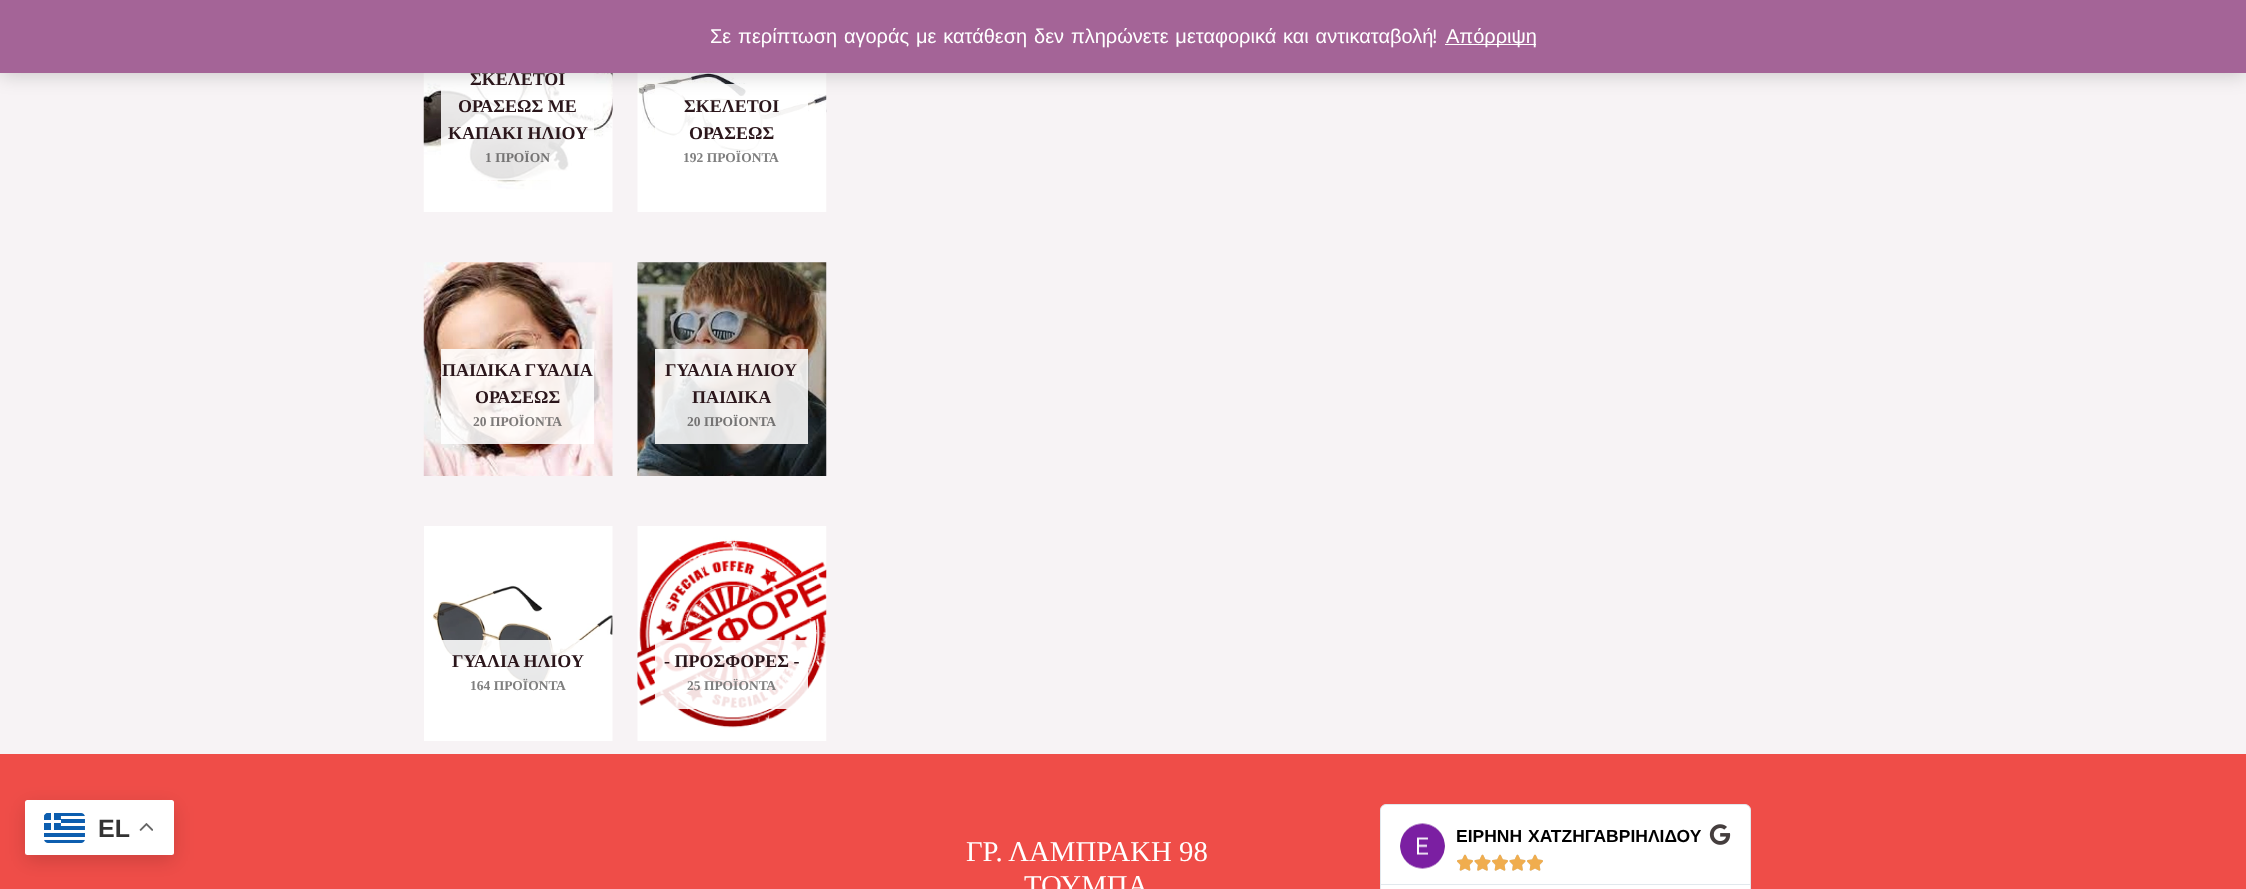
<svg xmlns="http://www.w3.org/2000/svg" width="2246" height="889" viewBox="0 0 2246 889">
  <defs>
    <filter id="blur1" x="-50%" y="-200%" width="200%" height="500%"><feGaussianBlur stdDeviation="10"/></filter>
    <filter id="blur2" x="-50%" y="-200%" width="200%" height="500%"><feGaussianBlur stdDeviation="9.5"/></filter>
  </defs>
  <rect width="100%" height="100%" fill="#f7f3f5"/>
  <image x="423" y="73" width="190" height="139" href="img3.png"/>
  <rect x="441" y="73" width="153" height="107" fill="#ffffff" fill-opacity="0.88"/>
  <image x="637" y="73" width="190" height="139" href="img4.png"/>
  <rect x="655" y="84" width="153" height="73" fill="#ffffff" fill-opacity="0.88"/>
  <rect x="0" y="1" width="2246" height="73" fill="#000000" fill-opacity="0.2" filter="url(#blur1)"/>
  <rect x="0" y="0" width="2246" height="73" fill="#a46497"/>
  <text x="710" y="43" word-spacing="1.25" font-family="Liberation Sans" font-size="20" fill="#ffffff">Σε περίπτωση αγοράς με κατάθεση δεν πληρώνετε μεταφορικά και αντικαταβολή</text>
  <text x="1432" y="43" font-family="Work Sans" font-size="20" fill="#ffffff">!</text>
  <rect x="1445" y="44" width="91" height="1" fill="#ffffff"/>
  <text x="1446" y="43" font-family="Liberation Sans" font-size="20" fill="#ffffff">Απόρριψη</text>
  <rect x="0" y="754" width="2246" height="135" fill="#ef4d48"/>
  <rect x="25" y="806" width="149" height="55" rx="2.5" fill="#000000" fill-opacity="0.15" filter="url(#blur2)"/>
  <rect x="25" y="800" width="149" height="55" rx="2.5" fill="#ffffff"/>
  <image x="44" y="813" width="41" height="30" href="img1.png"/>
  <text x="98" y="837" font-family="Liberation Sans" font-size="25" font-weight="bold" fill="#333333">EL</text>
  <image x="139" y="823" width="14" height="8" href="img2.png"/>
  <text x="470" y="85" font-family="Liberation Serif" font-size="18" font-weight="bold" fill="#2b161b">ΣΚΕΛΕΤΟΙ</text>
  <text x="458" y="112" font-family="Liberation Serif" font-size="18" font-weight="bold" fill="#2b161b">ΟΡΑΣΕΩΣ ΜΕ</text>
  <text x="448" y="139" font-family="Liberation Serif" font-size="18" font-weight="bold" fill="#2b161b">ΚΑΠΑΚΙ ΗΛΙΟΥ</text>
  <text x="485" y="162" font-family="Liberation Serif" font-size="13.5" font-weight="bold" fill="#747373">1 ΠΡΟΪΟΝ</text>
  <text x="684" y="112" font-family="Liberation Serif" font-size="18" font-weight="bold" fill="#2b161b">ΣΚΕΛΕΤΟΙ</text>
  <text x="689" y="139" font-family="Liberation Serif" font-size="18" font-weight="bold" fill="#2b161b">ΟΡΑΣΕΩΣ</text>
  <text x="683" y="162" font-family="Liberation Serif" font-size="13.5" font-weight="bold" fill="#7f7f7f">192 ΠΡΟΪΟΝΤΑ</text>
  <image x="423" y="262" width="190" height="214" href="img5.png"/>
  <rect x="441" y="349" width="153" height="95" fill="#ffffff" fill-opacity="0.88"/>
  <text x="442" y="376" font-family="Liberation Serif" font-size="18" font-weight="bold" fill="#2b161b">ΠΑΙΔΙΚΑ ΓΥΑΛΙΑ</text>
  <text x="475" y="403" font-family="Liberation Serif" font-size="18" font-weight="bold" fill="#2b161b">ΟΡΑΣΕΩΣ</text>
  <text x="473" y="426" font-family="Liberation Serif" font-size="13.5" font-weight="bold" fill="#7d7a79">20 ΠΡΟΪΟΝΤΑ</text>
  <image x="637" y="262" width="190" height="214" href="img6.png"/>
  <rect x="655" y="349" width="153" height="95" fill="#ffffff" fill-opacity="0.88"/>
  <text x="665" y="376" font-family="Liberation Serif" font-size="18" font-weight="bold" fill="#2b161b">ΓΥΑΛΙΑ ΗΛΙΟΥ</text>
  <text x="692" y="403" font-family="Liberation Serif" font-size="18" font-weight="bold" fill="#2b161b">ΠΑΙΔΙΚΑ</text>
  <text x="687" y="426" font-family="Liberation Serif" font-size="13.5" font-weight="bold" fill="#747373">20 ΠΡΟΪΟΝΤΑ</text>
  <image x="424" y="526" width="189" height="215" href="img7.png"/>
  <rect x="441" y="640" width="142" height="46" fill="#ffffff" fill-opacity="0.88"/>
  <text x="452" y="667" font-family="Liberation Serif" font-size="18" font-weight="bold" fill="#2b161b">ΓΥΑΛΙΑ ΗΛΙΟΥ</text>
  <text x="470" y="690" font-family="Liberation Serif" font-size="13.5" font-weight="bold" fill="#7f7f7f">164 ΠΡΟΪΟΝΤΑ</text>
  <image x="637" y="526" width="190" height="215" href="img8.png"/>
  <rect x="655" y="640" width="153" height="69" fill="#ffffff" fill-opacity="0.88"/>
  <text x="664" y="667" font-family="Liberation Serif" font-size="18" font-weight="bold" fill="#2b161b">- ΠΡΟΣΦΟΡΕΣ -</text>
  <text x="687" y="690" font-family="Liberation Serif" font-size="13.5" font-weight="bold" fill="#7f7f7f">25 ΠΡΟΪΟΝΤΑ</text>
  <rect x="1380.5" y="804.5" width="370" height="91" rx="5.5" fill="#ffffff" stroke="#e1e8ed"/>
  <rect x="1381" y="884" width="369" height="1" fill="#e1e8ed"/>
  <image x="1400" y="823" width="45" height="46" href="img9.png"/>
  <text x="1456" y="842" word-spacing="1" font-family="Liberation Sans" font-size="17.5" font-weight="bold" fill="#000000">ΕΙΡΗΝΗ ΧΑΤΖΗΓΑΒΡΙΗΛΙΔΟΥ</text>
  <image x="1457" y="854" width="16" height="17" href="img10.png"/>
  <image x="1457" y="854" width="16" height="17" href="img11.png"/>
  <image x="1474" y="854" width="17" height="17" href="img12.png"/>
  <image x="1474" y="854" width="17" height="17" href="img13.png"/>
  <image x="1492" y="854" width="16" height="17" href="img10.png"/>
  <image x="1492" y="854" width="16" height="17" href="img11.png"/>
  <image x="1509" y="854" width="17" height="17" href="img12.png"/>
  <image x="1509" y="854" width="17" height="17" href="img13.png"/>
  <image x="1527" y="854" width="16" height="17" href="img10.png"/>
  <image x="1527" y="854" width="16" height="17" href="img11.png"/>
  <image x="1709" y="824" width="22" height="21" href="img14.png"/>
  <text x="966" y="861" font-family="Liberation Serif" font-size="28.75" fill="#ffffff">ΓΡ. ΛΑΜΠΡΑΚΗ 98</text>
  <text x="1024" y="895" font-family="Liberation Serif" font-size="28.75" fill="#ffffff">ΤΟΥΜΠΑ</text>
</svg>
